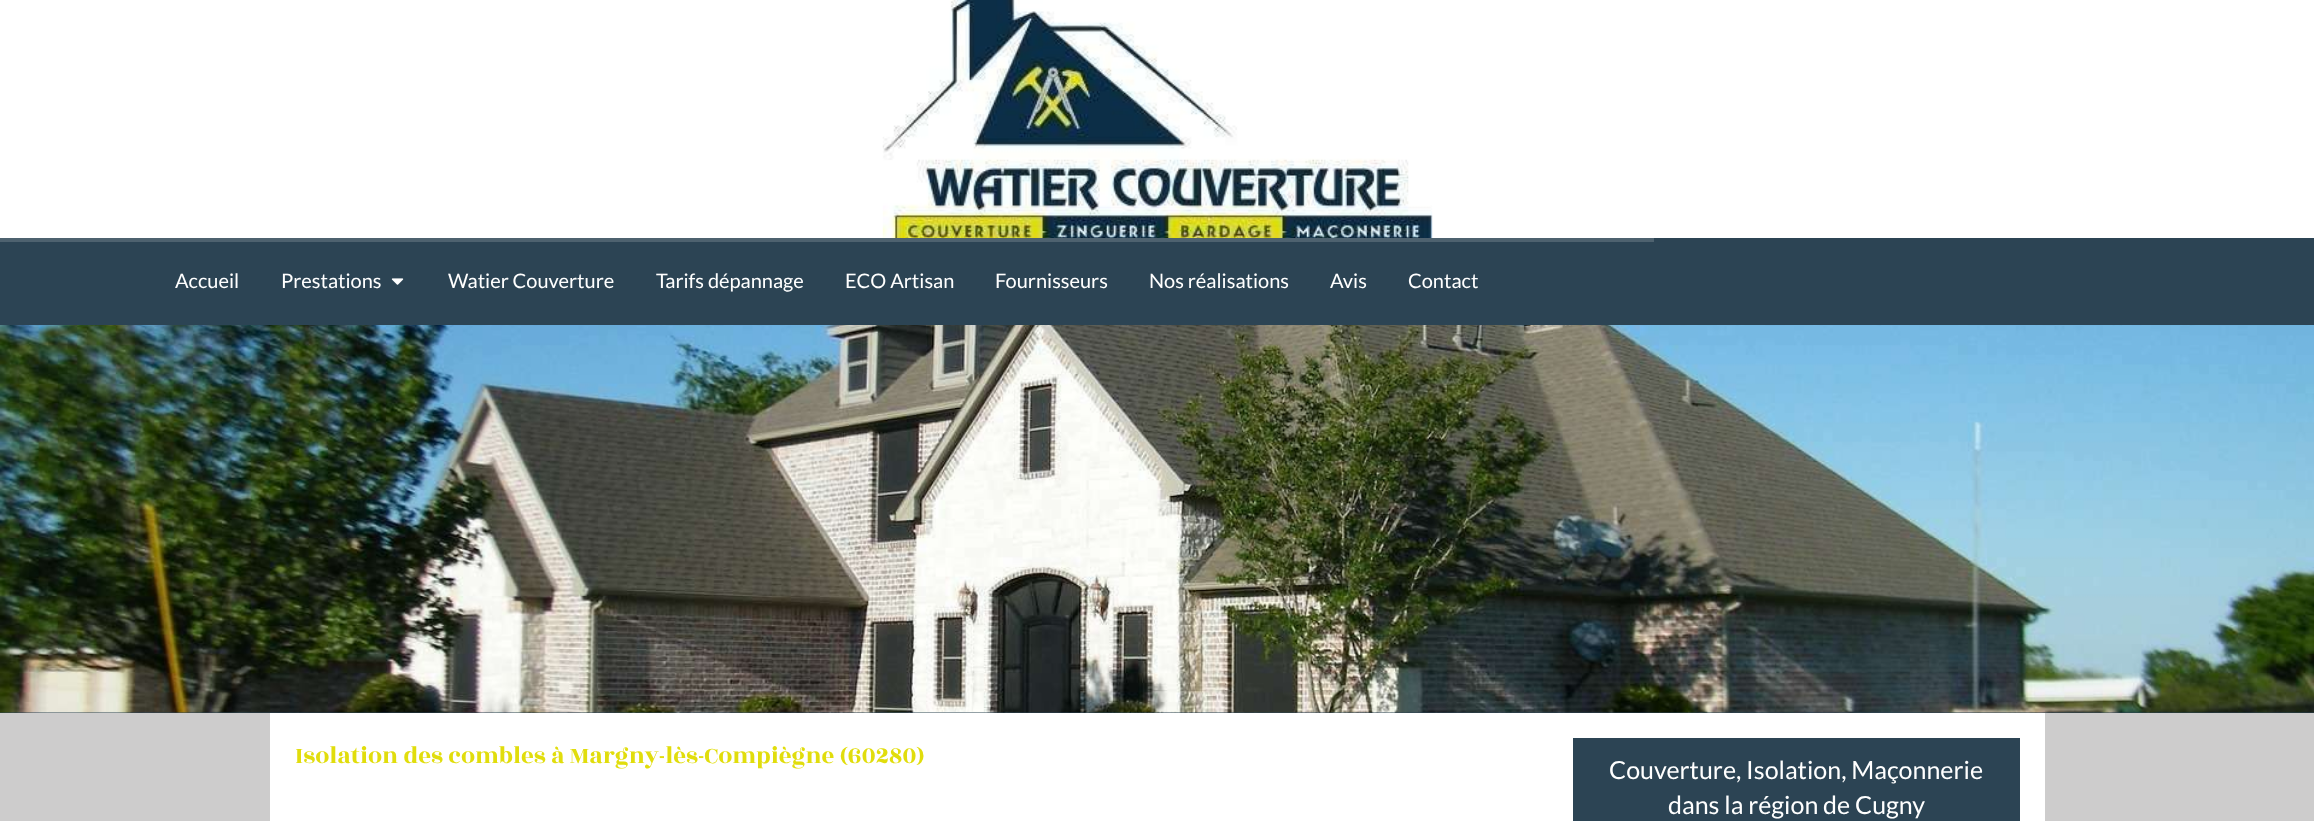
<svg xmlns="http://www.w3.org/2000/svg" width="2314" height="821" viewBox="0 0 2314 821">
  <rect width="100%" height="100%" fill="#cdcccc"/>
  <rect x="0" y="0" width="2314" height="238" fill="#ffffff"/>
  <image x="882" y="0" width="551" height="238" href="img1.png"/>
  <rect x="0" y="238" width="2314" height="475" fill="#2c4454"/>
  <image x="0" y="325" width="2314" height="388" href="img2.png"/>
  <rect x="0" y="238" width="1654" height="4" fill="#d5dadd"/>
  <rect x="0" y="238" width="1654" height="4" fill="#2c4454" fill-opacity="0.8"/>
  <text x="175" y="288" font-family="Lato" font-size="20" fill="#ffffff">Accueil</text>
  <text x="281" y="288" font-family="Lato" font-size="20" fill="#ffffff">Prestations</text>
  <image x="391" y="278" width="13" height="7" href="img3.png"/>
  <text x="448" y="288" font-family="Lato" font-size="20" fill="#ffffff">Watier Couverture</text>
  <text x="656" y="288" font-family="Lato" font-size="20" fill="#ffffff">Tarifs dépannage</text>
  <text x="845" y="288" font-family="Lato" font-size="20" fill="#ffffff">ECO Artisan</text>
  <text x="995" y="288" font-family="Lato" font-size="20" fill="#ffffff">Fournisseurs</text>
  <text x="1149" y="288" font-family="Lato" font-size="20" fill="#ffffff">Nos réalisations</text>
  <text x="1330" y="288" font-family="Lato" font-size="20" fill="#ffffff">Avis</text>
  <text x="1408" y="288" font-family="Lato" font-size="20" fill="#ffffff">Contact</text>
  <rect x="270" y="713" width="1775" height="108" fill="#ffffff"/>
  <text x="295" y="763" font-family="Rozha One" font-size="25" fill="#e1dd0c">Isolation des combles à Margny-lès-Compiègne (60280)</text>
  <rect x="1573.5" y="738.5" width="446" height="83" fill="none" stroke="#2c4454"/>
  <rect x="1574" y="739" width="445" height="82" fill="#2c4454"/>
  <text x="1609" y="779" font-family="Lato" font-size="25" fill="#ffffff">Couverture, Isolation, Maçonnerie</text>
  <text x="1668" y="814" font-family="Lato" font-size="25" fill="#ffffff">dans la région de Cugny</text>
</svg>
